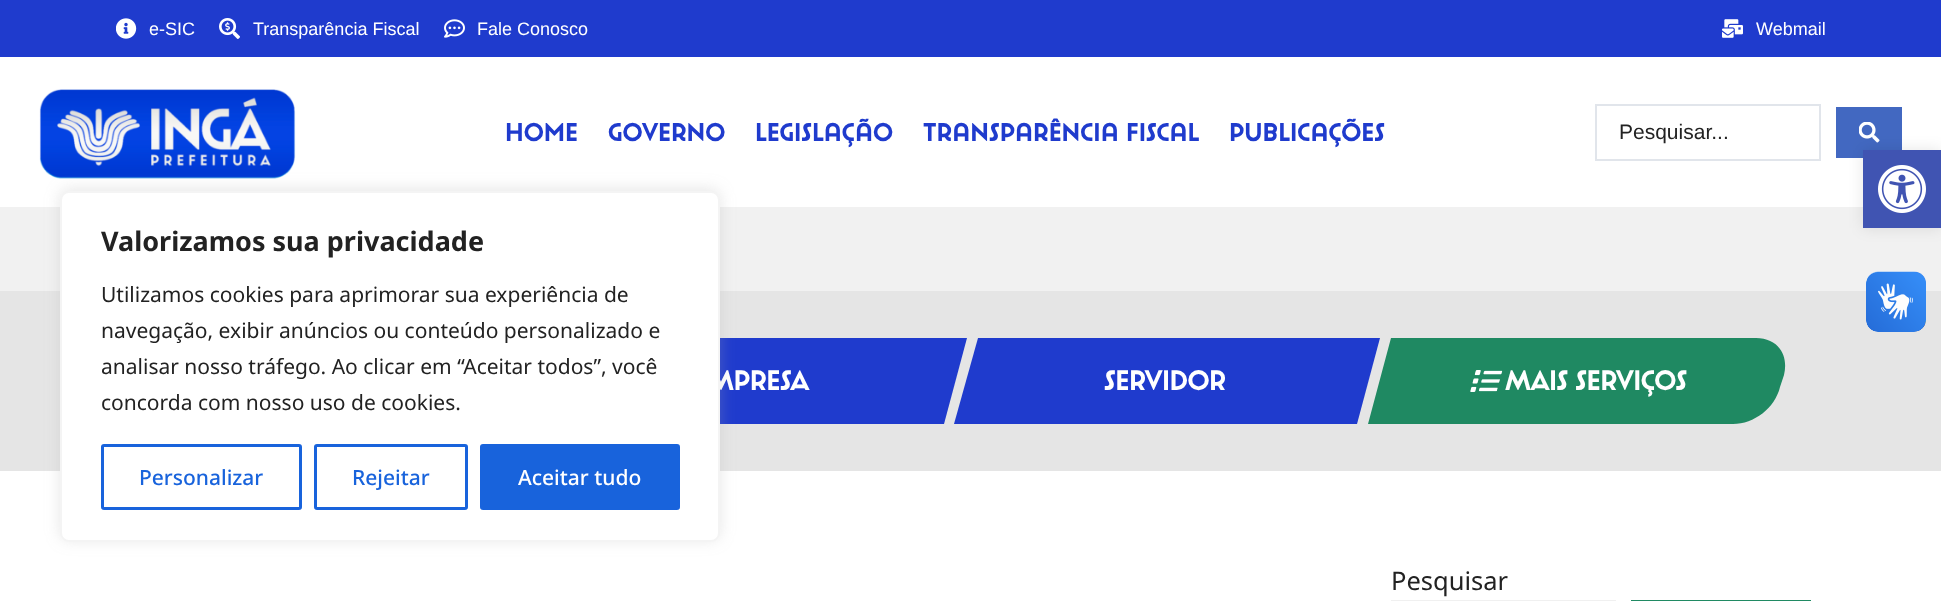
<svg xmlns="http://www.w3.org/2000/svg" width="1941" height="601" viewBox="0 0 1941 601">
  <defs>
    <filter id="blur1" x="-50%" y="-200%" width="200%" height="500%"><feGaussianBlur stdDeviation="7.5"/></filter>
  </defs>
  <rect width="100%" height="100%" fill="#ffffff"/>
  <rect x="0" y="0" width="1941" height="57" fill="#1f3bcd"/>
  <image x="116" y="18" width="21" height="21" href="img1.png"/>
  <text x="149" y="35" font-family="Liberation Sans" font-size="18" fill="#ffffff">e-SIC</text>
  <image x="219" y="18" width="21" height="21" href="img2.png"/>
  <text x="253" y="35" font-family="Liberation Sans" font-size="18" fill="#ffffff">Transparência Fiscal</text>
  <image x="444" y="19" width="21" height="19" href="img3.png"/>
  <text x="477" y="35" font-family="Liberation Sans" font-size="18" fill="#ffffff">Fale Conosco</text>
  <image x="1722" y="19" width="21" height="19" href="img4.png"/>
  <text x="1756" y="35" font-family="Liberation Sans" font-size="18" fill="#ffffff">Webmail</text>
  <image x="39" y="89" width="257" height="90" href="img5.png"/>
  <text x="505" y="141" font-family="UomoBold" font-size="25.5" font-weight="bold" fill="#1f3bcd">Home</text>
  <text x="608" y="141" font-family="UomoBold" font-size="25.5" font-weight="bold" fill="#1f3bcd">Governo</text>
  <text x="755" y="141" font-family="UomoBold" font-size="25.5" font-weight="bold" fill="#1f3bcd">Legislação</text>
  <text x="923" y="141" font-family="UomoBold" font-size="25.5" font-weight="bold" fill="#1f3bcd">Transparência Fiscal</text>
  <text x="1229" y="141" font-family="UomoBold" font-size="25.5" font-weight="bold" fill="#1f3bcd">Publicações</text>
  <rect x="1596" y="105" width="224" height="55" fill="none" stroke="#e1e5eb" stroke-width="2"/>
  <text x="1619" y="139" font-family="Liberation Sans" font-size="21" fill="#222222">Pesquisar...</text>
  <rect x="1836" y="107" width="66" height="51" fill="#4268c1"/>
  <image x="1859" y="122" width="21" height="21" href="img6.png"/>
  <rect x="0" y="207" width="1941" height="84" fill="#f1f1f1"/>
  <rect x="0" y="291" width="1941" height="180" fill="#e5e5e5"/>
  <path d="M564 338H967L944 424H541Z" fill="#1f3bcd"/>
  <text x="708" y="390" font-family="UomoBold" font-size="28" font-weight="bold" letter-spacing="-0.5" fill="#ffffff">MPRESA</text>
  <path d="M978 338H1380L1357 424H954Z" fill="#1f3bcd"/>
  <text x="1104" y="390" font-family="UomoBold" font-size="28" font-weight="bold" letter-spacing="-0.5" fill="#ffffff">SERVIDOR</text>
  <path d="M1391 338H1756C1777 338 1789 354 1784 375L1780 387C1775 408 1754 424 1733 424H1368Z" fill="#1f8962"/>
  <image x="1470" y="370" width="33" height="22" href="img7.png"/>
  <text x="1505" y="390" font-family="UomoBold" font-size="28" font-weight="bold" letter-spacing="-0.5" fill="#ffffff">MAIS SERVIÇOS</text>
  <rect x="1863" y="150" width="78" height="78" fill="#000000" fill-opacity="0.1" filter="url(#blur1)"/>
  <rect x="1863" y="150" width="78" height="78" fill="#4054b2"/>
  <image x="1878" y="165" width="48" height="48" href="img8.png"/>
  <rect x="60" y="189" width="660" height="351" rx="9" fill="#acabab" fill-opacity="0.3" filter="url(#blur1)"/>
  <rect x="61" y="192" width="658" height="349" rx="8" fill="#ffffff" stroke="#f4f4f4" stroke-width="2"/>
  <text x="101" y="251" font-family="Noto Sans" font-size="27" font-weight="bold" fill="#222222">Valorizamos sua privacidade</text>
  <text x="101" y="302" font-family="Noto Sans" font-size="21" fill="#222222">Utilizamos cookies para aprimorar sua experiência de</text>
  <text x="101" y="338" font-family="Noto Sans" font-size="21" fill="#222222">navegação, exibir anúncios ou conteúdo personalizado e</text>
  <text x="101" y="374" font-family="Noto Sans" font-size="21" fill="#222222">analisar nosso tráfego. Ao clicar em “Aceitar todos”, você</text>
  <text x="101" y="410" font-family="Noto Sans" font-size="21" fill="#222222">concorda com nosso uso de cookies.</text>
  <rect x="102.5" y="445.5" width="198" height="63" rx="1.5" fill="none" stroke="#1863dc" stroke-width="3"/>
  <text x="139" y="485" font-family="Noto Sans" font-size="21" font-weight="500" fill="#1863dc">Personalizar</text>
  <rect x="315.5" y="445.5" width="151" height="63" rx="1.5" fill="none" stroke="#1863dc" stroke-width="3"/>
  <text x="352" y="485" font-family="Noto Sans" font-size="21" font-weight="500" fill="#1863dc">Rejeitar</text>
  <rect x="481.5" y="445.5" width="197" height="63" rx="1.5" fill="#1863dc" stroke="#1863dc" stroke-width="3"/>
  <text x="518" y="485" font-family="Noto Sans" font-size="21" font-weight="500" fill="#ffffff">Aceitar tudo</text>
  <image x="1866" y="271" width="60" height="61" href="img9.png"/>
  <image x="1866" y="272" width="60" height="60" href="img10.png"/>
  <text x="1391" y="590" font-family="Noto Sans" font-size="25.5" fill="#222222">Pesquisar</text>
  <rect x="1392" y="601" width="223" height="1" fill="none" stroke="#f0f0f0" stroke-width="2"/>
  <rect x="1631" y="600" width="180" height="1" fill="#208a63"/>
</svg>
